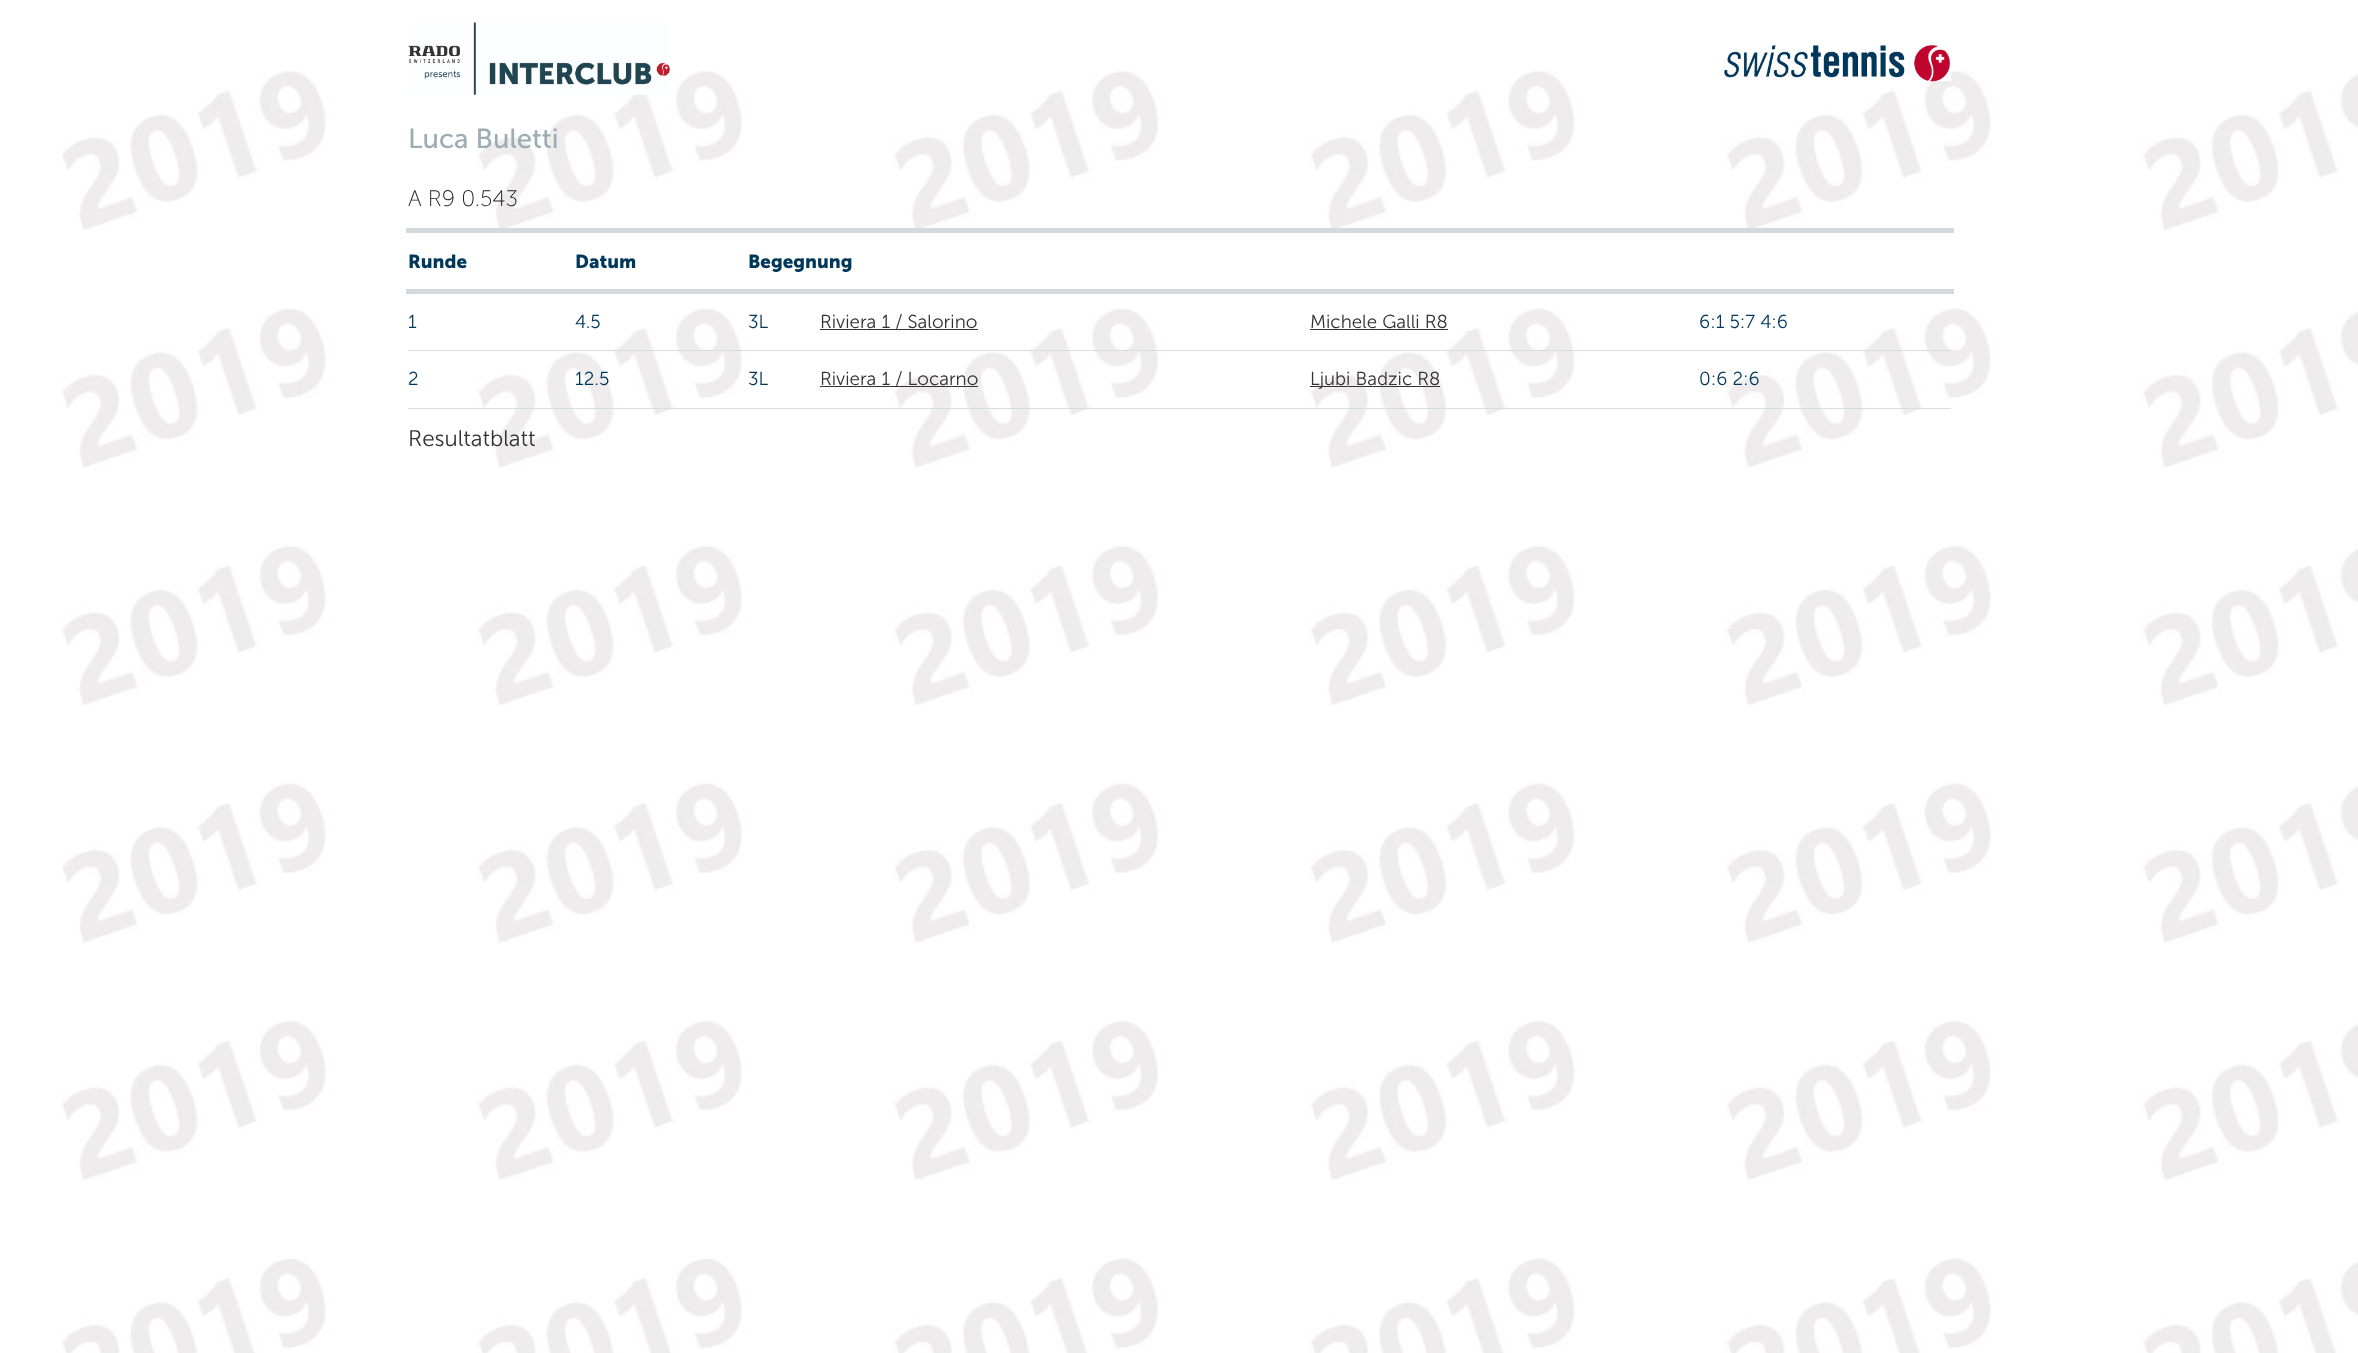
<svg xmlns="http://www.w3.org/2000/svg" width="2358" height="1353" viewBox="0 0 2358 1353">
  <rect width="100%" height="100%" fill="#ffffff"/>
  <image x="62" y="71" width="2296" height="1282" href="img1.png"/>
  <image x="408" y="22" width="262" height="73" href="img2.png"/>
  <image x="1724" y="45" width="228" height="37" href="img3.png"/>
  <text x="408" y="148" font-family="Museo Sans" font-size="27.5" fill="#9cadb3">Luca Buletti</text>
  <text x="408" y="206" font-family="Museo Sans" font-size="22.5" font-weight="200" fill="#222222">A R9 0.543</text>
  <rect x="406" y="228" width="1548" height="5" fill="#d2dadd"/>
  <rect x="406" y="289" width="1548" height="5" fill="#d2dadd"/>
  <text x="408" y="268" font-family="Museo Sans" font-size="18.75" font-weight="bold" fill="#00385b">Runde</text>
  <text x="575" y="268" font-family="Museo Sans" font-size="18.75" font-weight="bold" fill="#00385b">Datum</text>
  <text x="748" y="268" font-family="Museo Sans" font-size="18.75" font-weight="bold" fill="#00385b">Begegnung</text>
  <text x="408" y="328" font-family="Museo Sans" font-size="18.75" font-weight="300" fill="#00385b">1</text>
  <text x="575" y="328" font-family="Museo Sans" font-size="18.75" font-weight="300" fill="#00385b">4.5</text>
  <text x="748" y="328" font-family="Museo Sans" font-size="18.75" font-weight="300" fill="#00385b">3L</text>
  <text x="820" y="328" font-family="Museo Sans" font-size="18.75" font-weight="300" fill="#333333">Riviera 1 / Salorino</text>
  <rect x="820" y="329" width="158" height="1" fill="#333333"/>
  <text x="1310" y="328" font-family="Museo Sans" font-size="18.75" font-weight="300" fill="#333333">Michele Galli R8</text>
  <rect x="1310" y="329" width="138" height="1" fill="#333333"/>
  <rect x="408" y="350" width="1543" height="1" fill="#d5dde0"/>
  <text x="1699" y="328" font-family="Museo Sans" font-size="18.75" font-weight="300" fill="#00385b">6:1 5:7 4:6</text>
  <text x="408" y="385" font-family="Museo Sans" font-size="18.75" font-weight="300" fill="#00385b">2</text>
  <text x="575" y="385" font-family="Museo Sans" font-size="18.75" font-weight="300" fill="#00385b">12.5</text>
  <text x="748" y="385" font-family="Museo Sans" font-size="18.75" font-weight="300" fill="#00385b">3L</text>
  <text x="820" y="385" font-family="Museo Sans" font-size="18.75" font-weight="300" fill="#333333">Riviera 1 / Locarno</text>
  <rect x="820" y="386" width="158" height="1" fill="#333333"/>
  <rect x="1310" y="386" width="130" height="1" fill="#333333"/>
  <text x="1310" y="385" font-family="Museo Sans" font-size="18.75" font-weight="300" fill="#333333">Ljubi Badzic R8</text>
  <rect x="408" y="408" width="1543" height="1" fill="#d5dde0"/>
  <text x="1699" y="385" font-family="Museo Sans" font-size="18.75" font-weight="300" fill="#00385b">0:6 2:6</text>
  <text x="408" y="446" font-family="Museo Sans" font-size="22.5" font-weight="300" fill="#333333">Resultatblatt</text>
</svg>
